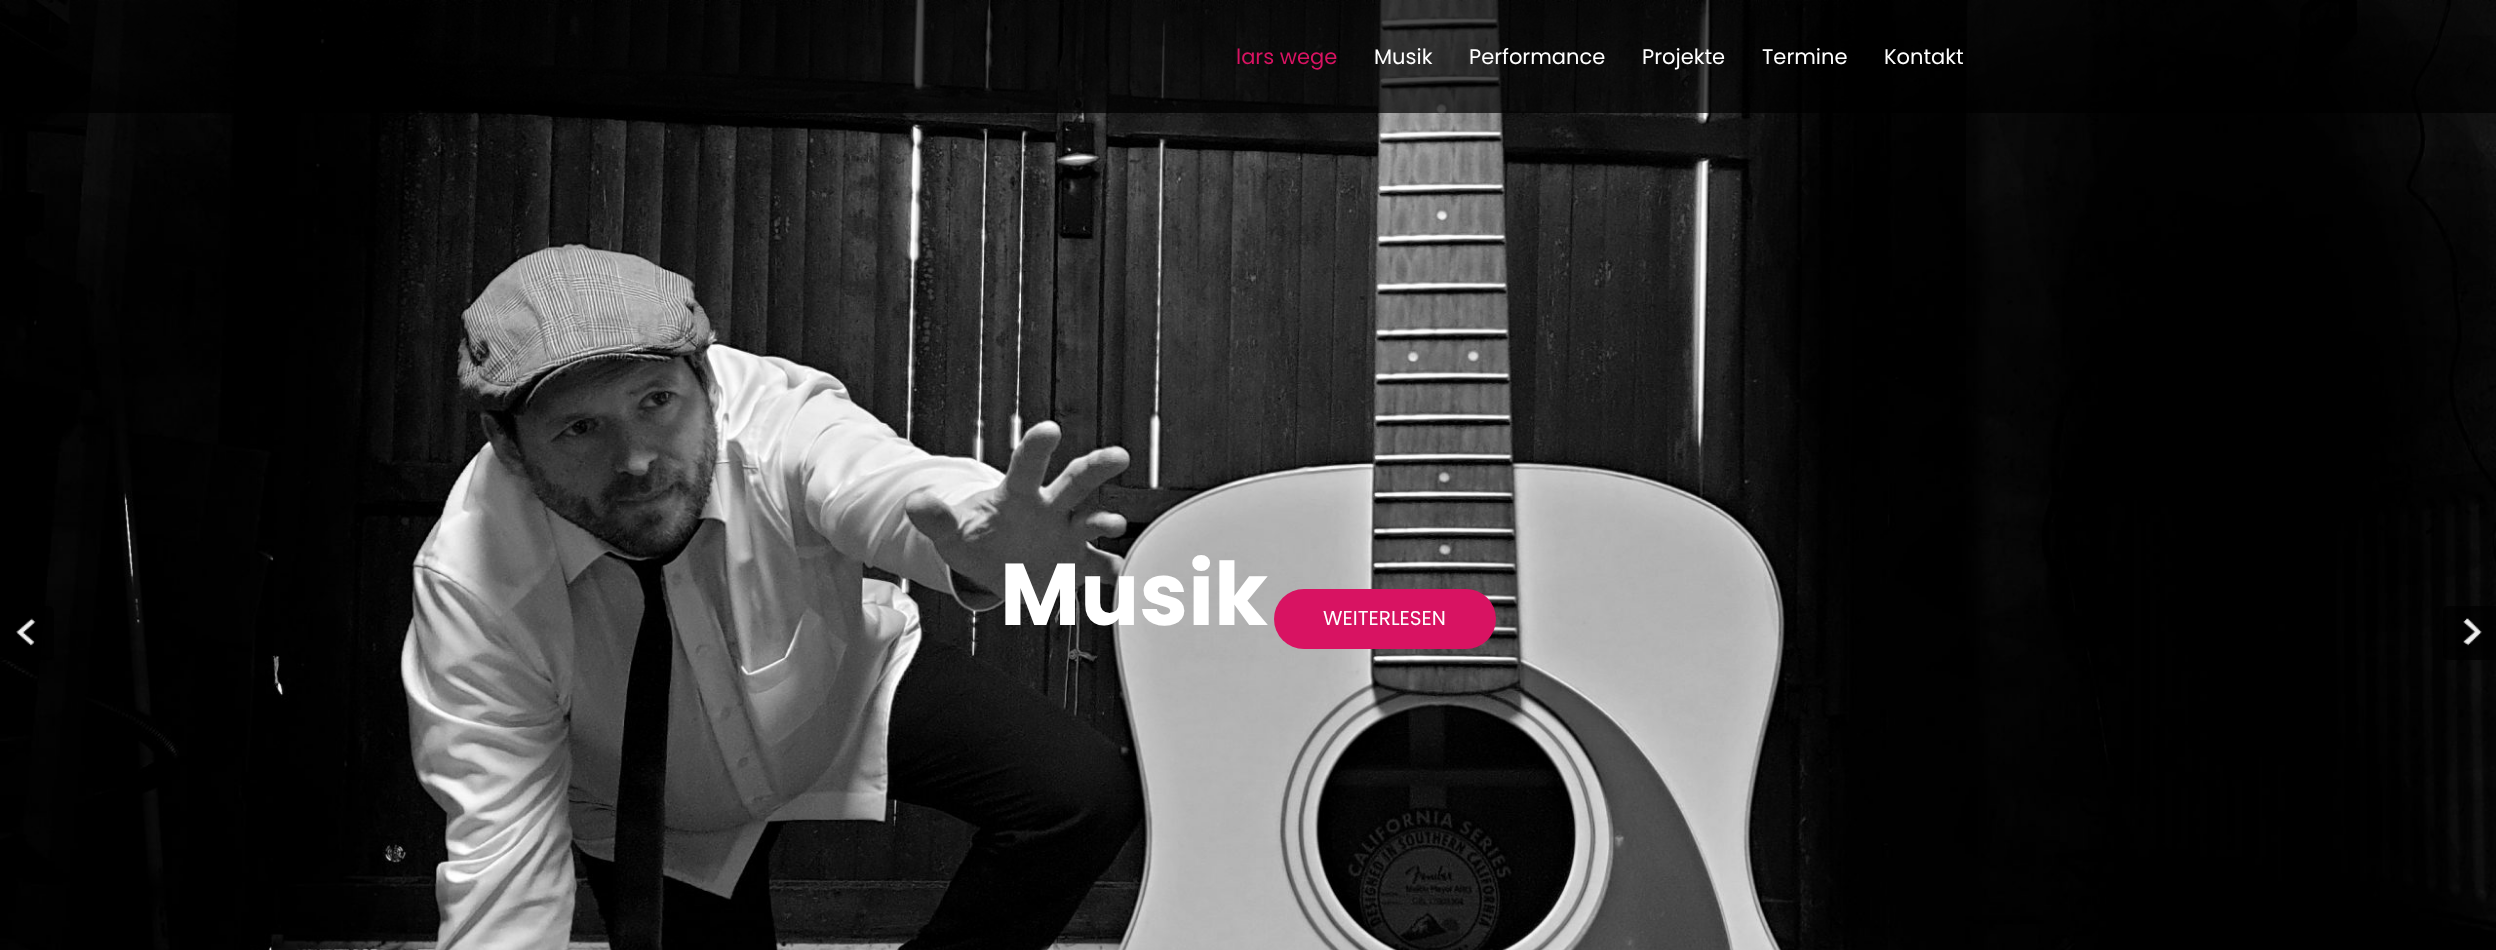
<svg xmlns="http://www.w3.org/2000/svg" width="2496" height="950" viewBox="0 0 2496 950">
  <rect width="100%" height="100%" fill="#ffffff"/>
  <image x="0" y="0" width="2496" height="950" href="img1.png"/>
  <rect x="0" y="0" width="2496" height="113" fill="#000000" fill-opacity="0.7"/>
  <text x="1236" y="64" font-family="Poppins" font-size="21" fill="#d81362">lars wege</text>
  <text x="1374" y="64" font-family="Poppins" font-size="21" fill="#ffffff">Musik</text>
  <text x="1469" y="64" font-family="Poppins" font-size="21" fill="#ffffff">Performance</text>
  <text x="1642" y="64" font-family="Poppins" font-size="21" fill="#ffffff">Projekte</text>
  <text x="1762" y="64" font-family="Poppins" font-size="21" fill="#ffffff">Termine</text>
  <text x="1884" y="64" font-family="Poppins" font-size="21" fill="#ffffff">Kontakt</text>
  <text x="1000" y="625" font-family="Poppins" font-size="87.5" font-weight="bold" fill="#ffffff">Musik</text>
  <rect x="1274" y="589" width="222" height="60" rx="30" fill="#d81362"/>
  <text x="1323" y="625" font-family="Poppins" font-size="20" fill="#ffffff">WEITERLESEN</text>
  <path d="M0 606H48C51.5 606 54 608.5 54 612V654C54 657.5 51.5 660 48 660H0Z" fill="#000000" fill-opacity="0.7"/>
  <image x="16" y="618" width="20" height="28" href="img2.png"/>
  <path d="M2449 606H2496V660H2449C2445.5 660 2443 657.5 2443 654V612C2443 608.5 2445.5 606 2449 606Z" fill="#000000" fill-opacity="0.7"/>
  <image x="2463" y="618" width="19" height="28" href="img3.png"/>
</svg>
